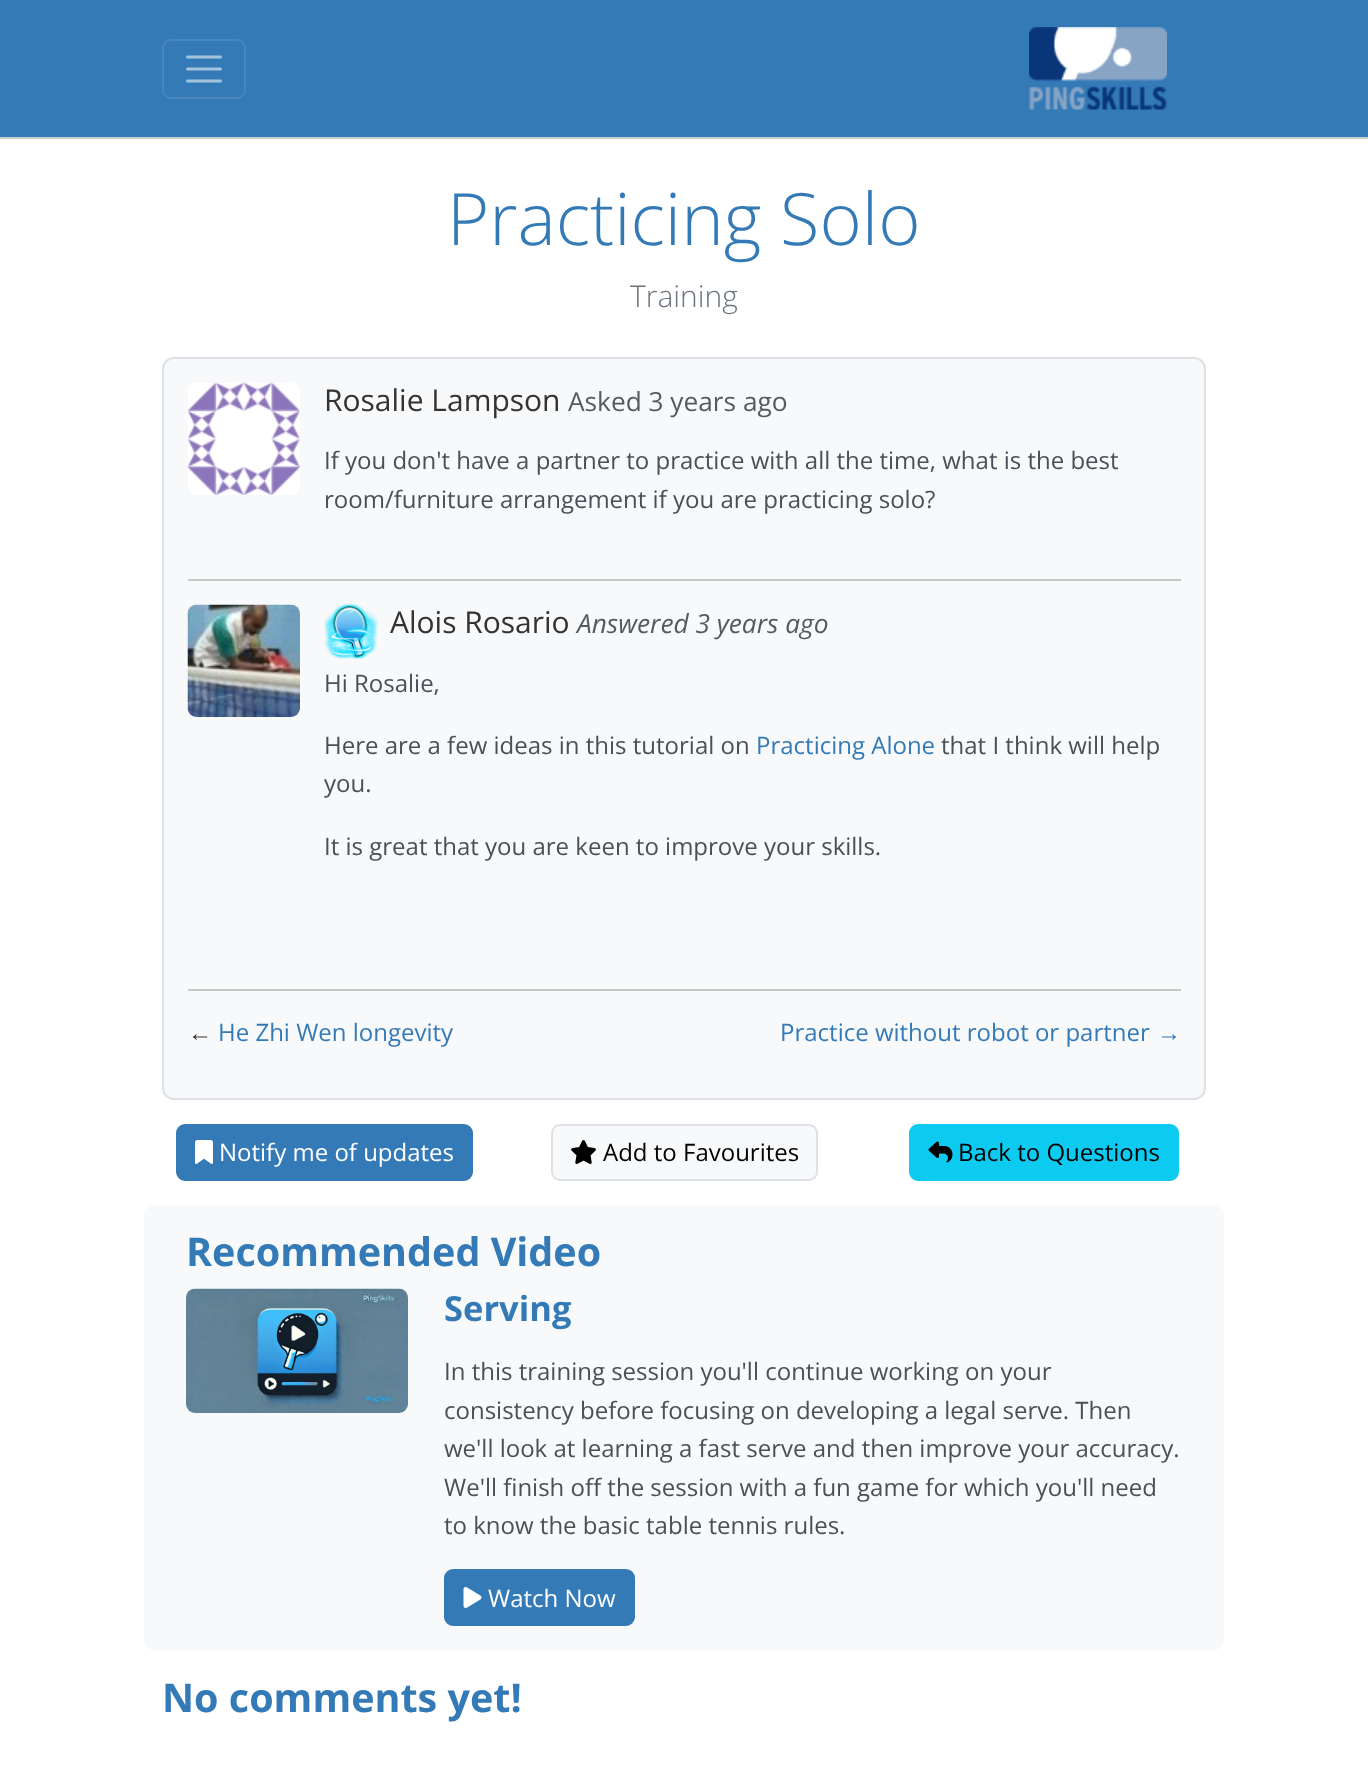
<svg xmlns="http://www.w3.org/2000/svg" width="1368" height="1766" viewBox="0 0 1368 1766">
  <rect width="100%" height="100%" fill="#ffffff"/>
  <rect x="0" y="0" width="1368" height="137" fill="#337ab7"/>
  <rect x="0" y="137" width="1368" height="2" fill="#cccccc"/>
  <rect x="163" y="40" width="82" height="58" rx="8" fill="none" stroke="#4787be" stroke-width="2"/>
  <path d="M187.5 57H220.5M187.5 69H220.5M187.5 81H220.5" fill="none" stroke="#a3c3df" stroke-width="3" stroke-linecap="round"/>
  <image x="1029" y="27" width="138" height="83" href="img1.png"/>
  <text x="447" y="245" font-family="Open Sans" font-size="72.25" font-weight="300" fill="#337ab7">Practicing Solo</text>
  <text x="630" y="307" font-family="Open Sans" font-size="30" font-weight="300" fill="#6c757d">Training</text>
  <rect x="163" y="358" width="1042" height="741" rx="11" fill="#f8f9fa" stroke="#dee2e6" stroke-width="2"/>
  <image x="187" y="382" width="113" height="113" href="img2.png"/>
  <text x="324" y="411" font-family="Open Sans" font-size="30" fill="#333333">Rosalie Lampson</text>
  <text x="568" y="411" font-family="Open Sans" font-size="26.25" fill="#575a5d">Asked 3 years ago</text>
  <text x="324" y="469" font-family="Open Sans" font-size="24" fill="#495057">If you don't have a partner to practice with all the time, what is the best</text>
  <text x="324" y="508" font-family="Open Sans" font-size="24" fill="#495057">room/furniture arrangement if you are practicing solo?</text>
  <rect x="188" y="579" width="993" height="2" fill="#c7c8c8"/>
  <image x="187" y="604" width="113" height="113" href="img3.png"/>
  <image x="324" y="604" width="54" height="55" href="img4.png"/>
  <text x="390" y="633" font-family="Open Sans" font-size="30" fill="#333333">Alois Rosario</text>
  <text x="577" y="633" font-family="Open Sans" font-size="26.25" font-style="italic" fill="#575a5d">Answered 3 years ago</text>
  <text x="324" y="692" font-family="Open Sans" font-size="24" fill="#495057">Hi Rosalie,</text>
  <text x="324" y="754" font-family="Open Sans" font-size="24" fill="#495057">Here are a few ideas in this tutorial on</text>
  <text x="756" y="754" font-family="Open Sans" font-size="24" fill="#337ab7">Practicing Alone</text>
  <text x="941" y="754" font-family="Open Sans" font-size="24" fill="#495057">that I think will help</text>
  <text x="324" y="792" font-family="Open Sans" font-size="24" fill="#495057">you.</text>
  <text x="324" y="855" font-family="Open Sans" font-size="24" fill="#495057">It is great that you are keen to improve your skills.</text>
  <rect x="188" y="989" width="993" height="2" fill="#c7c8c8"/>
  <text x="188" y="1041" font-family="Liberation Sans" font-size="24" fill="#333333">←</text>
  <text x="218" y="1041" font-family="Open Sans" font-size="24" fill="#337ab7">He Zhi Wen longevity</text>
  <text x="780" y="1041" font-family="Open Sans" font-size="24" fill="#337ab7">Practice without robot or partner</text>
  <text x="1157" y="1041" font-family="Liberation Sans" font-size="24" fill="#337ab7">→</text>
  <rect x="177" y="1125" width="295" height="55" rx="8" fill="#337ab7" stroke="#337ab7" stroke-width="2"/>
  <image x="195" y="1140" width="18" height="24" href="img5.png"/>
  <text x="219" y="1161" font-family="Open Sans" font-size="24" fill="#ffffff">Notify me of updates</text>
  <rect x="552" y="1125" width="265" height="55" rx="8" fill="#f8f9fa" stroke="#dee2e6" stroke-width="2"/>
  <image x="571" y="1140" width="25" height="24" href="img6.png"/>
  <text x="603" y="1161" font-family="Open Sans" font-size="24" fill="#000000">Add to Favourites</text>
  <rect x="910" y="1125" width="268" height="55" rx="8" fill="#0dcaf0" stroke="#0dcaf0" stroke-width="2"/>
  <image x="928" y="1141" width="25" height="22" href="img7.png"/>
  <text x="958" y="1161" font-family="Open Sans" font-size="24" fill="#000000">Back to Questions</text>
  <rect x="144" y="1205" width="1080" height="445" rx="9" fill="#f8f9fa"/>
  <text x="186" y="1266" font-family="Open Sans" font-size="39.5" font-weight="bold" fill="#337ab7">Recommended Video</text>
  <image x="186" y="1288" width="222" height="125" href="img8.png"/>
  <text x="444" y="1321" font-family="Open Sans" font-size="34.5" font-weight="bold" fill="#337ab7">Serving</text>
  <text x="444" y="1380" font-family="Open Sans" font-size="24" fill="#495057">In this training session you'll continue working on your</text>
  <text x="444" y="1419" font-family="Open Sans" font-size="24" fill="#495057">consistency before focusing on developing a legal serve. Then</text>
  <text x="444" y="1457" font-family="Open Sans" font-size="24" fill="#495057">we'll look at learning a fast serve and then improve your accuracy.</text>
  <text x="444" y="1496" font-family="Open Sans" font-size="24" fill="#495057">We'll finish off the session with a fun game for which you'll need</text>
  <text x="444" y="1534" font-family="Open Sans" font-size="24" fill="#495057">to know the basic table tennis rules.</text>
  <rect x="445" y="1570" width="189" height="55" rx="8" fill="#337ab7" stroke="#337ab7" stroke-width="2"/>
  <image x="463" y="1587" width="19" height="21" href="img9.png"/>
  <text x="488" y="1607" font-family="Open Sans" font-size="24" fill="#ffffff">Watch Now</text>
  <text x="162" y="1712" font-family="Open Sans" font-size="39.5" font-weight="bold" fill="#337ab7">No comments yet!</text>
</svg>
